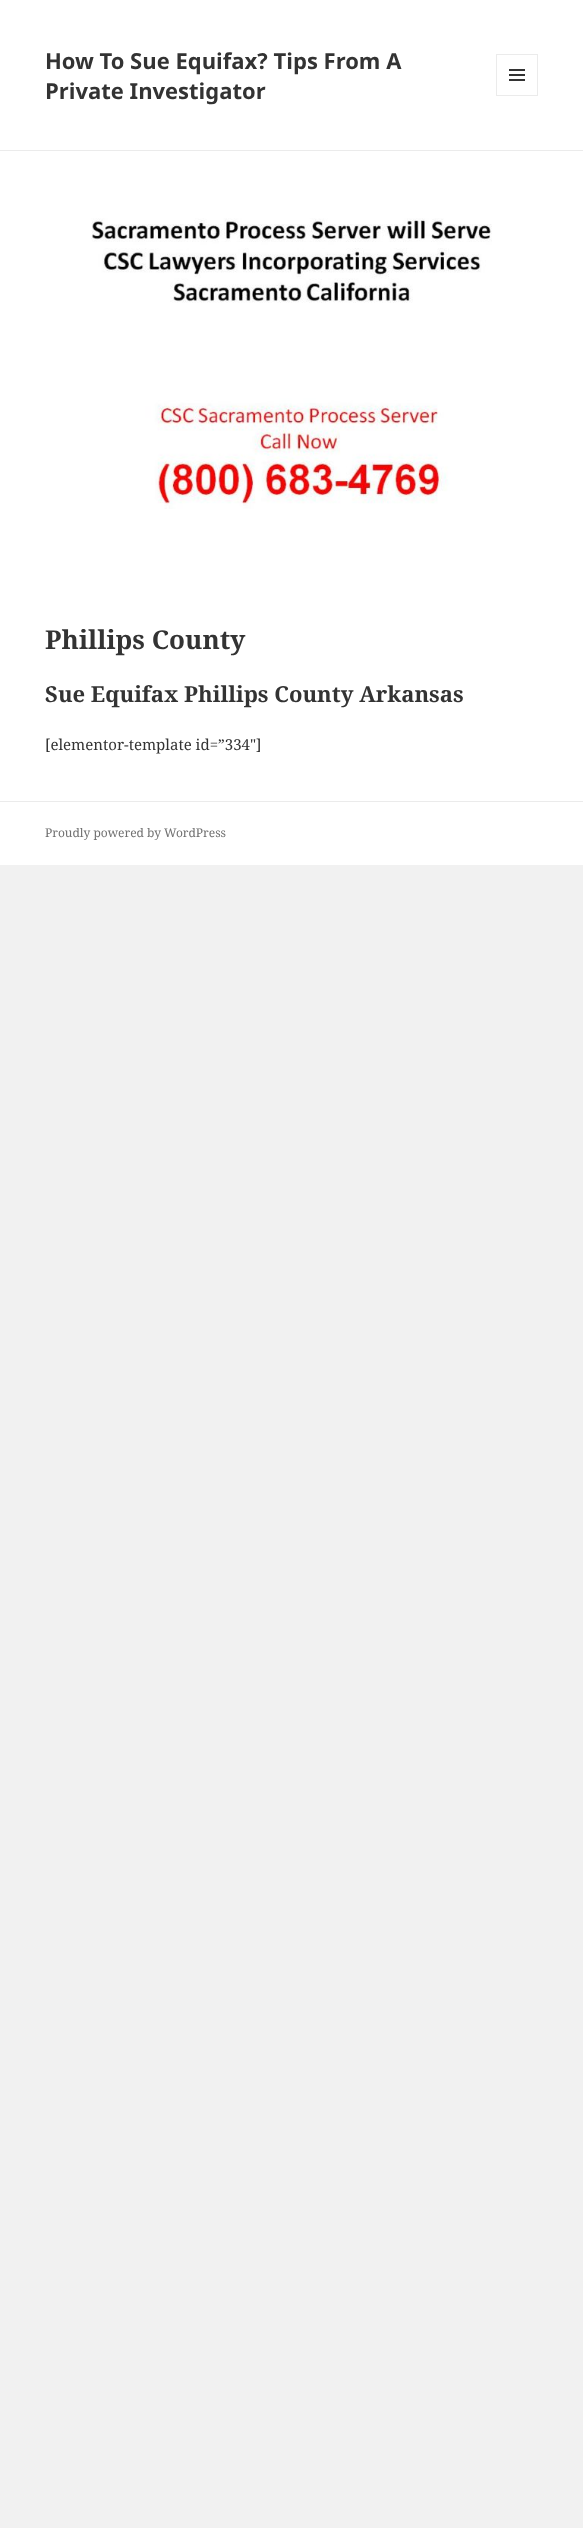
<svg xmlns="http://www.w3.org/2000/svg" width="583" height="2528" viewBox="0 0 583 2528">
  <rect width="100%" height="100%" fill="#f1f1f1"/>
  <rect x="0" y="0" width="583" height="150" fill="#ffffff"/>
  <rect x="0" y="150" width="583" height="1" fill="#ebebeb"/>
  <text x="45" y="69" font-family="Noto Sans" font-size="22" font-weight="bold" fill="#333333">How To Sue Equifax? Tips From A</text>
  <text x="45" y="99" font-family="Noto Sans" font-size="22" font-weight="bold" fill="#333333">Private Investigator</text>
  <rect x="496.5" y="54.5" width="41" height="41" fill="none" stroke="#ebebeb"/>
  <image x="509" y="69" width="16" height="12" href="img1.png"/>
  <rect x="0" y="151" width="583" height="650" fill="#ffffff"/>
  <image x="91" y="218" width="401" height="291" href="img2.png"/>
  <text x="45" y="649" font-family="Noto Serif" font-size="26" font-weight="bold" fill="#333333">Phillips County</text>
  <text x="45" y="702" font-family="Noto Serif" font-size="22" font-weight="bold" fill="#333333">Sue Equifax Phillips County Arkansas</text>
  <text x="45" y="750" font-family="Noto Serif" font-size="15" fill="#333333">[elementor-template id=”334″]</text>
  <rect x="0" y="802" width="583" height="63" fill="#ffffff"/>
  <rect x="0" y="801" width="583" height="1" fill="#ebebeb"/>
  <text x="45" y="837" font-family="Noto Serif" font-size="12" fill="#707070">Proudly powered by WordPress</text>
</svg>
